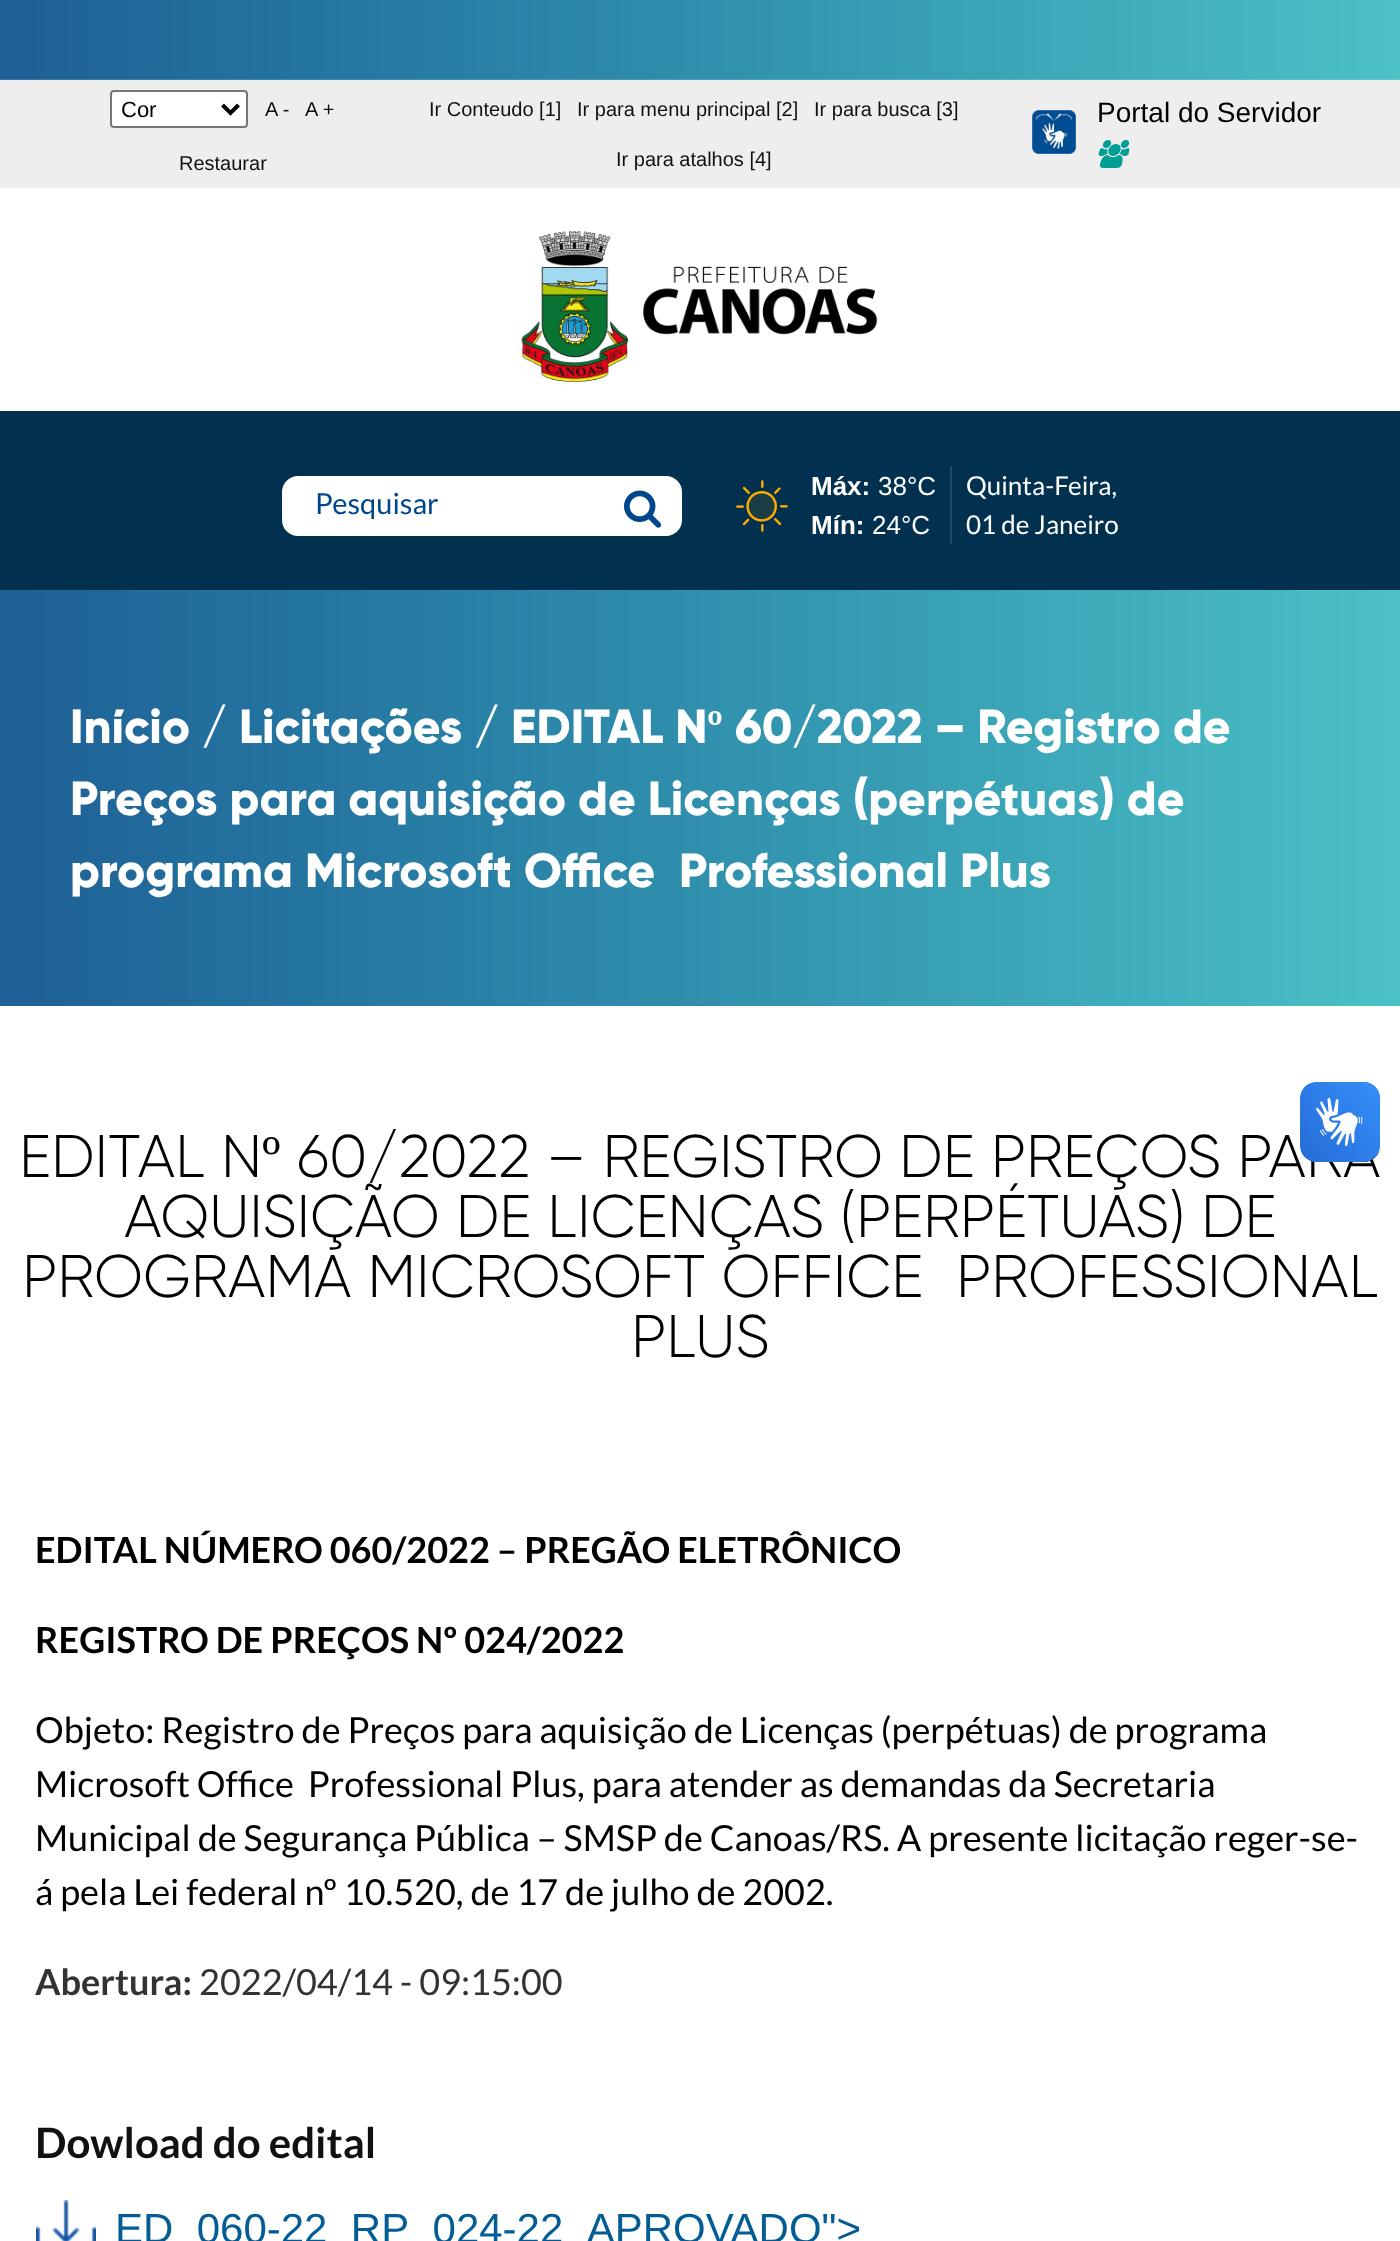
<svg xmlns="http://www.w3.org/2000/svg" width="1400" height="2241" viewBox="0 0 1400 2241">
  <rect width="100%" height="100%" fill="#ffffff"/>
  <image x="0" y="0" width="1400" height="80" href="img1.png"/>
  <rect x="0" y="80" width="1400" height="108" fill="#eeeeee"/>
  <rect x="111" y="91" width="136" height="36" rx="3" fill="#ffffff" stroke="#767676" stroke-width="2"/>
  <path d="M222.5 105L230.5 113L238.5 105" fill="none" stroke="#000000" stroke-width="4"/>
  <text x="121" y="117" font-family="Liberation Sans" font-size="22" fill="#000000">Cor</text>
  <text x="265" y="116" font-family="Liberation Sans" font-size="20" fill="#111111">A -</text>
  <text x="305" y="116" font-family="Liberation Sans" font-size="20" fill="#111111">A +</text>
  <text x="179" y="170" font-family="Liberation Sans" font-size="20" fill="#111111">Restaurar</text>
  <text x="429" y="116" font-family="Liberation Sans" font-size="20" fill="#111111">Ir Conteudo [1]</text>
  <text x="577" y="116" font-family="Liberation Sans" font-size="20" fill="#111111">Ir para menu principal [2]</text>
  <text x="814" y="116" font-family="Liberation Sans" font-size="20" fill="#111111">Ir para busca [3]</text>
  <text x="616" y="166" font-family="Liberation Sans" font-size="20" fill="#111111">Ir para atalhos [4]</text>
  <image x="1032" y="110" width="44" height="44" href="img2.png"/>
  <text x="1097" y="122" font-family="Liberation Sans" font-size="28" fill="#000000">Portal do Servidor</text>
  <image x="1098" y="140" width="32" height="28" href="img3.png"/>
  <image x="521" y="231" width="357" height="151" href="img4.png"/>
  <path d="M-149 411H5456L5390 591H-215Z" fill="#02314f"/>
  <rect x="282" y="476" width="400" height="60" rx="16" fill="#ffffff"/>
  <text x="315" y="514" font-family="Lato" font-size="29" fill="#00468c">Pesquisar</text>
  <image x="624" y="490" width="38" height="38" href="img5.png"/>
  <rect x="950" y="466" width="2" height="78" fill="#234c66"/>
  <image x="736" y="480" width="52" height="52" href="img6.png"/>
  <text x="811" y="495" font-family="Liberation Sans" font-size="26" font-weight="bold" fill="#ffffff">Máx:</text>
  <text x="878" y="495" font-family="Liberation Sans" font-size="26" fill="#ffffff">38°C</text>
  <text x="811" y="534" font-family="Liberation Sans" font-size="26" font-weight="bold" fill="#ffffff">Mín:</text>
  <text x="872" y="534" font-family="Liberation Sans" font-size="26" fill="#ffffff">24°C</text>
  <text x="966" y="495" font-family="Lato" font-size="26" fill="#ffffff">Quinta-Feira,</text>
  <text x="966" y="534" font-family="Lato" font-size="26" fill="#ffffff">01 de Janeiro</text>
  <image x="0" y="590" width="1400" height="416" href="img7.png"/>
  <text x="70" y="743" font-family="Gilroy" font-size="48" font-weight="800" fill="#ffffff">Início / Licitações / EDITAL N</text>
  <text x="707" y="743" font-family="Liberation Serif" font-size="48" font-weight="bold" fill="#ffffff">º</text>
  <text x="735" y="743" font-family="Gilroy" font-size="48" font-weight="800" fill="#ffffff">60/2022 – Registro de</text>
  <text x="70" y="815" font-family="Gilroy" font-size="48" font-weight="800" fill="#ffffff">Preços para aquisição de Licenças (perpétuas) de</text>
  <text x="70" y="887" font-family="Gilroy" font-size="48" font-weight="800" fill="#ffffff">programa Microsoft Office</text>
  <text x="679" y="887" font-family="Gilroy" font-size="48" font-weight="800" fill="#ffffff">Professional Plus</text>
  <text x="19" y="1177" font-family="Gilroy" font-size="60" font-weight="300" fill="#000000">EDITAL N</text>
  <text x="262" y="1177" font-family="Liberation Serif" font-size="60" fill="#000000">º</text>
  <text x="297" y="1177" font-family="Gilroy" font-size="60" font-weight="300" fill="#000000">60/2022 – REGISTRO DE PREÇOS PARA</text>
  <text x="124" y="1237" font-family="Gilroy" font-size="60" font-weight="300" fill="#000000">AQUISIÇÃO DE LICENÇAS (PERPÉTUAS) DE</text>
  <text x="22" y="1297" font-family="Gilroy" font-size="60" font-weight="300" fill="#000000">PROGRAMA MICROSOFT OFFICE</text>
  <text x="956" y="1297" font-family="Gilroy" font-size="60" font-weight="300" fill="#000000">PROFESSIONAL</text>
  <text x="631" y="1357" font-family="Gilroy" font-size="60" font-weight="300" fill="#000000">PLUS</text>
  <text x="35" y="1563" font-family="Lato" font-size="36" font-weight="bold" fill="#000000">EDITAL NÚMERO 060/2022 – PREGÃO ELETRÔNICO</text>
  <text x="35" y="1653" font-family="Lato" font-size="36" font-weight="bold" fill="#000000">REGISTRO DE PREÇOS Nº 024/2022</text>
  <text x="35" y="1743" font-family="Lato" font-size="36" fill="#000000">Objeto: Registro de Preços para aquisição de Licenças (perpétuas) de programa</text>
  <text x="35" y="1797" font-family="Lato" font-size="36" fill="#000000" xml:space="preserve">Microsoft Office  Professional Plus, para atender as demandas da Secretaria</text>
  <text x="35" y="1851" font-family="Lato" font-size="36" fill="#000000">Municipal de Segurança Pública – SMSP de Canoas/RS. A presente licitação reger-se-</text>
  <text x="35" y="1905" font-family="Lato" font-size="36" fill="#000000">á pela Lei federal nº 10.520, de 17 de julho de 2002.</text>
  <text x="35" y="1995" font-family="Lato" font-size="36" font-weight="bold" fill="#333333">Abertura:</text>
  <text x="199" y="1995" font-family="Lato" font-size="36" fill="#333333">2022/04/14 - 09:15:00</text>
  <text x="35" y="2158" font-family="Lato" font-size="42" font-weight="bold" fill="#111111">Dowload do edital</text>
  <image x="36" y="2200" width="60" height="41" href="img8.png"/>
  <text x="115" y="2243" font-family="Liberation Sans" font-size="42" fill="#035c94">ED_060-22_RP_024-22_APROVADO"&gt;</text>
  <image x="1300" y="1082" width="80" height="80" href="img9.png"/>
  <image x="1300" y="1082" width="80" height="80" href="img10.png"/>
</svg>
